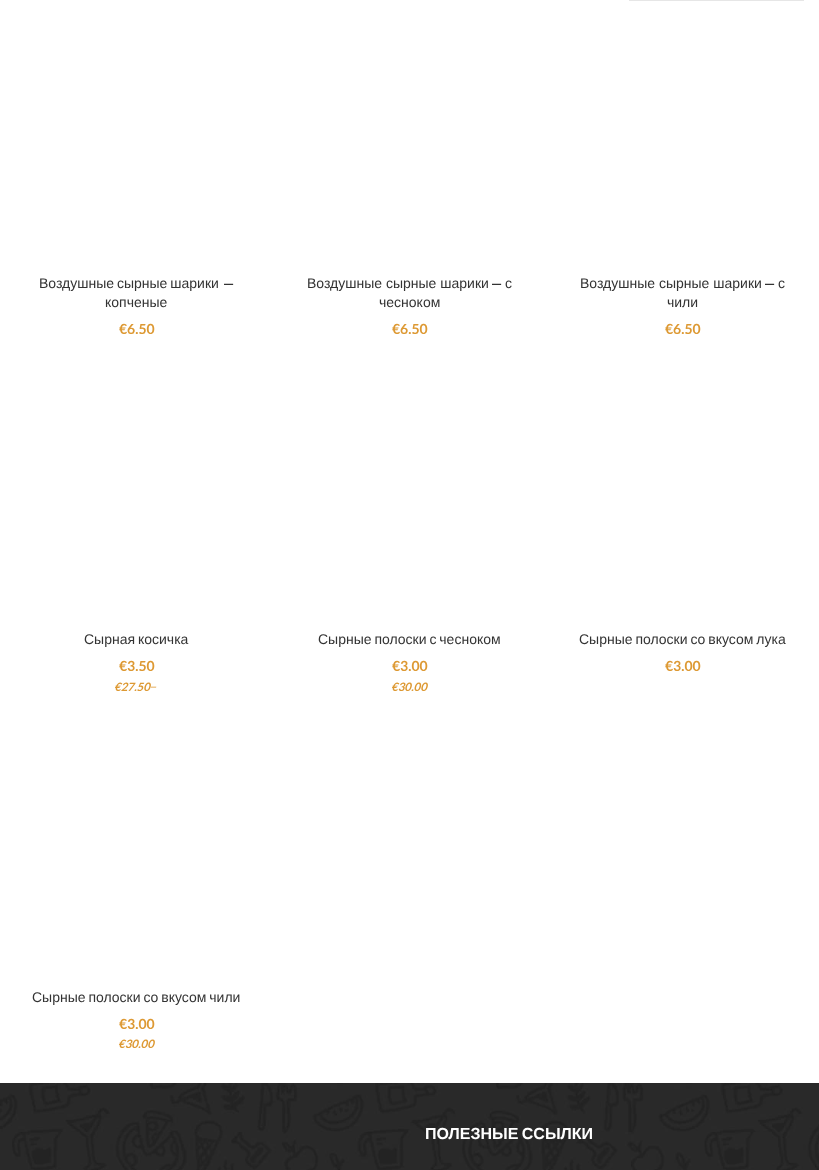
<svg xmlns="http://www.w3.org/2000/svg" width="819" height="1170" viewBox="0 0 819 1170">
  <rect width="100%" height="100%" fill="#ffffff"/>
  <rect x="629" y="0" width="175" height="1" fill="#e6e6e6"/>
  <text x="39" y="288" word-spacing="-1" font-family="Liberation Sans" font-size="14" fill="#333333">Воздушные сырные шарики</text>
  <text x="223" y="288" font-family="Signika" font-size="14" font-weight="500" fill="#333333">—</text>
  <text x="105" y="307" font-family="Liberation Sans" font-size="14" fill="#333333">копченые</text>
  <text x="119" y="334" font-family="Lato" font-size="14" font-weight="bold" fill="#dd9933">€6.50</text>
  <text x="307" y="288" font-family="Liberation Sans" font-size="14" fill="#333333">Воздушные сырные шарики</text>
  <text x="491" y="288" font-family="Signika" font-size="14" font-weight="500" fill="#333333">—</text>
  <text x="505" y="288" font-family="Liberation Sans" font-size="14" fill="#333333">с</text>
  <text x="379" y="307" font-family="Liberation Sans" font-size="14" fill="#333333">чесноком</text>
  <text x="392" y="334" font-family="Lato" font-size="14" font-weight="bold" fill="#dd9933">€6.50</text>
  <text x="580" y="288" font-family="Liberation Sans" font-size="14" fill="#333333">Воздушные сырные шарики</text>
  <text x="764" y="288" font-family="Signika" font-size="14" font-weight="500" fill="#333333">—</text>
  <text x="778" y="288" font-family="Liberation Sans" font-size="14" fill="#333333">с</text>
  <text x="667" y="307" font-family="Liberation Sans" font-size="14" fill="#333333">чили</text>
  <text x="665" y="334" font-family="Lato" font-size="14" font-weight="bold" fill="#dd9933">€6.50</text>
  <text x="84" y="644" word-spacing="-1" font-family="Liberation Sans" font-size="14" fill="#333333">Сырная косичка</text>
  <text x="119" y="671" font-family="Lato" font-size="14" font-weight="bold" fill="#dd9933">€3.50</text>
  <text x="114" y="691" font-family="Lato" font-size="11.5" font-weight="bold" font-style="italic" fill="#dd9933">€27.50</text>
  <text x="149" y="691" font-family="Lato" font-size="13" font-style="italic" fill="#dd9933">–</text>
  <text x="318" y="644" word-spacing="-1" font-family="Liberation Sans" font-size="14" fill="#333333">Сырные полоски с чесноком</text>
  <text x="392" y="671" font-family="Lato" font-size="14" font-weight="bold" fill="#dd9933">€3.00</text>
  <text x="391" y="691" font-family="Lato" font-size="11.5" font-weight="bold" font-style="italic" fill="#dd9933">€30.00</text>
  <text x="579" y="644" word-spacing="-1" font-family="Liberation Sans" font-size="14" fill="#333333">Сырные полоски со вкусом лука</text>
  <text x="665" y="671" font-family="Lato" font-size="14" font-weight="bold" fill="#dd9933">€3.00</text>
  <text x="32" y="1002" word-spacing="-1" font-family="Liberation Sans" font-size="14" fill="#333333">Сырные полоски со вкусом чили</text>
  <text x="119" y="1029" font-family="Lato" font-size="14" font-weight="bold" fill="#dd9933">€3.00</text>
  <text x="118" y="1048" font-family="Lato" font-size="11.5" font-weight="bold" font-style="italic" fill="#dd9933">€30.00</text>
  <image x="0" y="1083" width="819" height="87" href="img1.png"/>
  <text x="425" y="1139" word-spacing="-1" font-family="Liberation Sans" font-size="16" font-weight="bold" fill="#ffffff">ПОЛЕЗНЫЕ ССЫЛКИ</text>
</svg>
